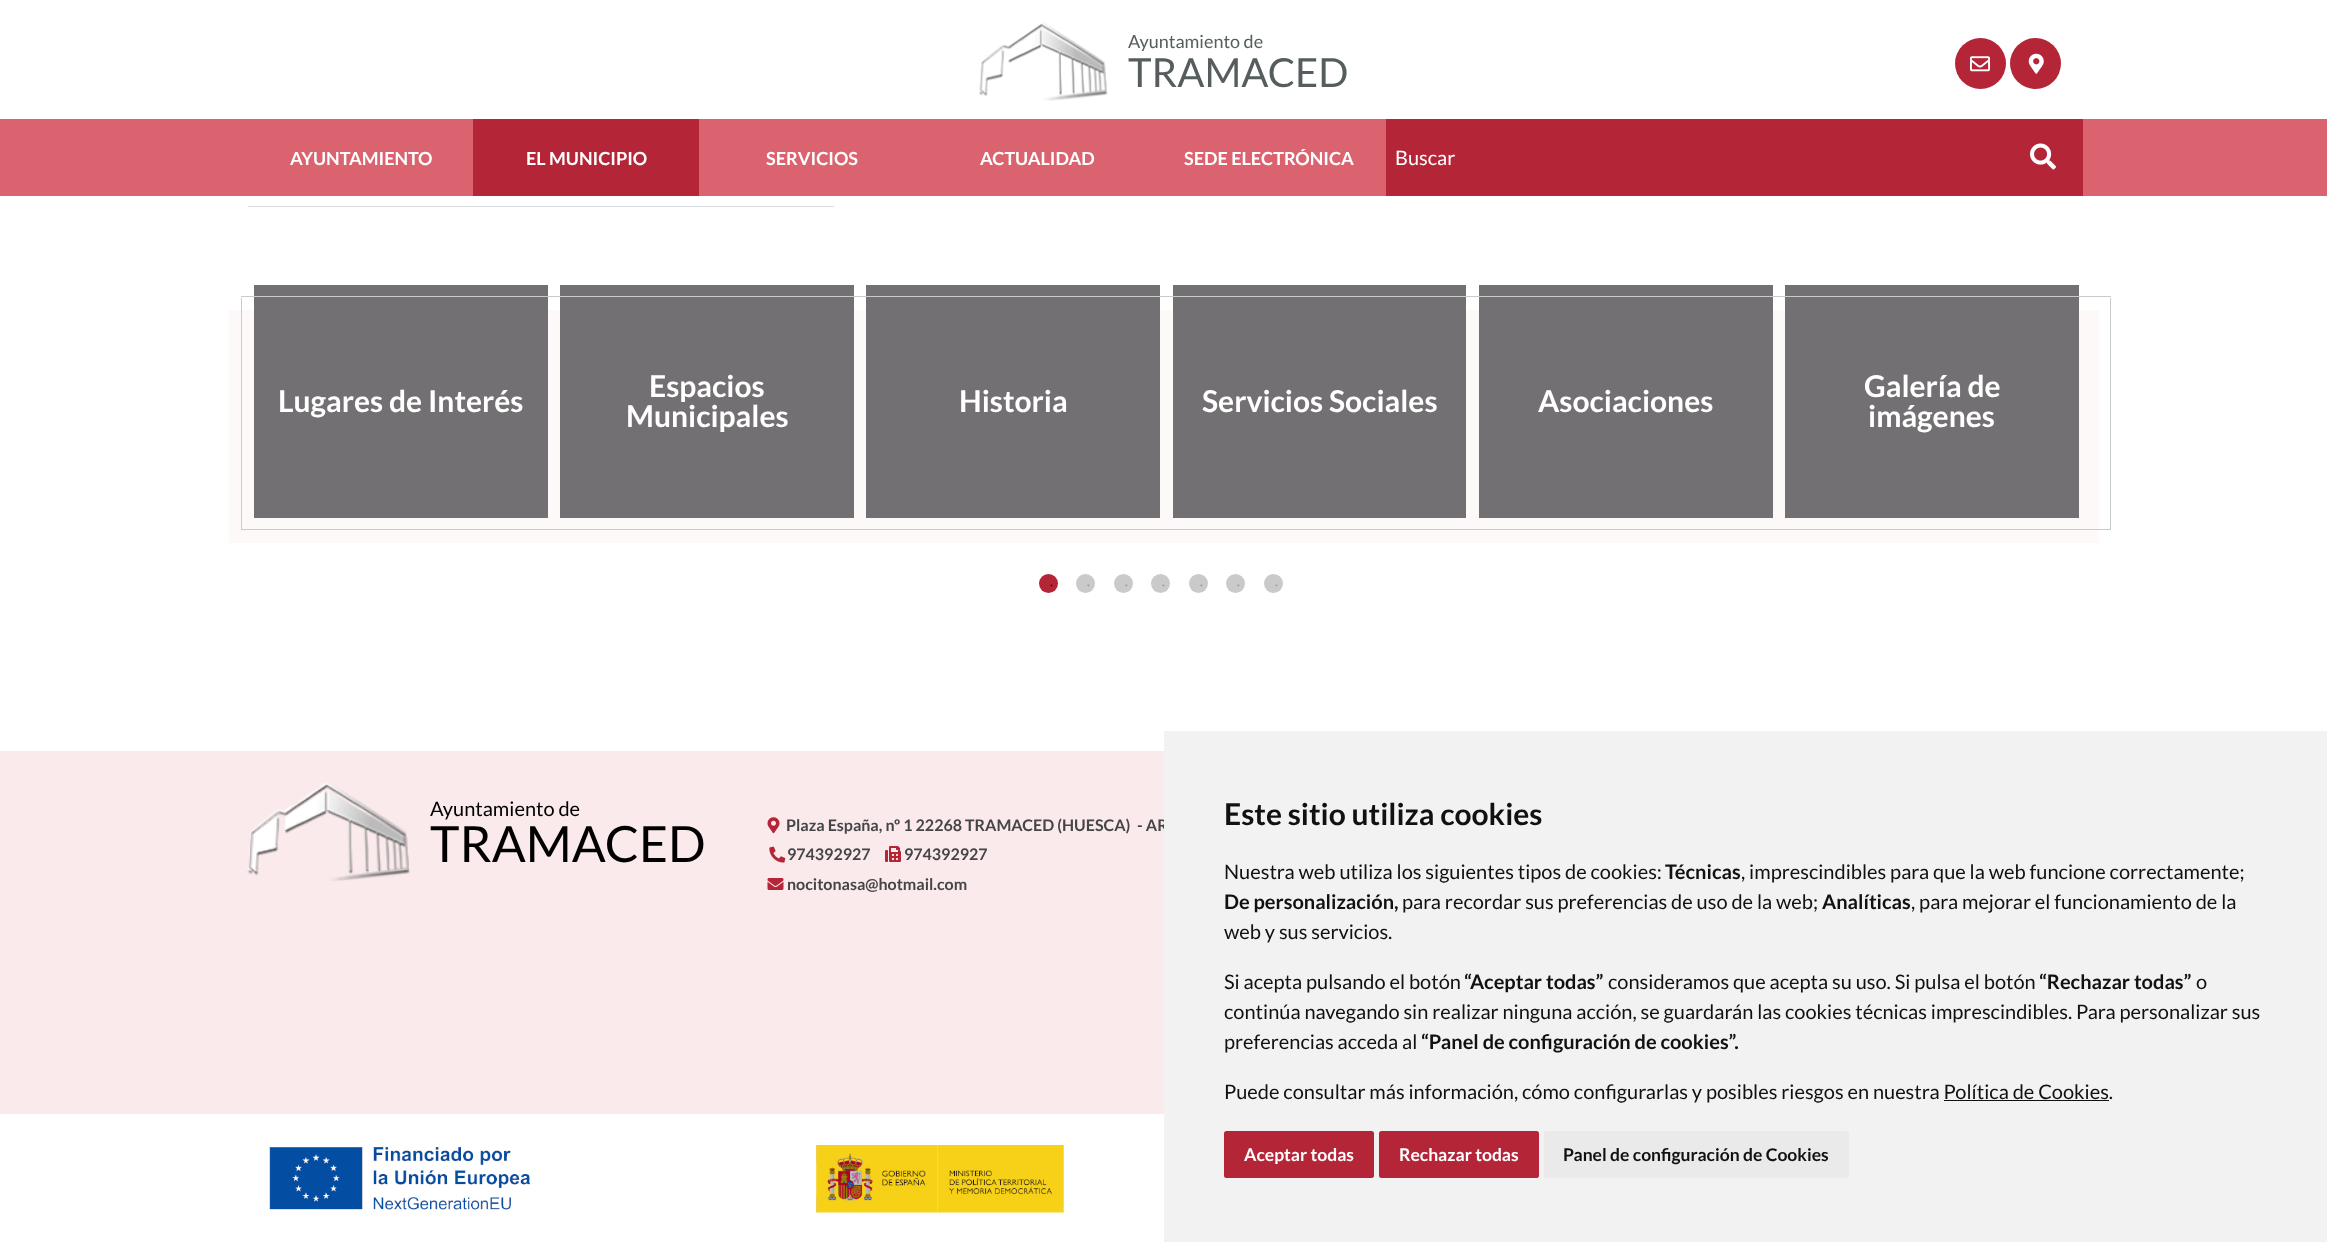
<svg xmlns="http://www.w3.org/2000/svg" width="2327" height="1242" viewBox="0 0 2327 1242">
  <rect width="100%" height="100%" fill="#ffffff"/>
  <image x="979" y="22" width="129" height="79" href="img1.png"/>
  <text x="1128" y="48" font-family="Lato" font-size="18" fill="#565d5e">Ayuntamiento de</text>
  <text x="1128" y="87" font-family="Lato" font-size="40" fill="#565d5e">TRAMACED</text>
  <circle cx="1980.5" cy="63.5" r="25.5" fill="#b42637"/>
  <image x="1970" y="56" width="20" height="16" href="img2.png"/>
  <circle cx="2035.5" cy="63.5" r="25.5" fill="#b42637"/>
  <image x="2028" y="53" width="16" height="21" href="img3.png"/>
  <rect x="0" y="119" width="2327" height="77" fill="#db636f"/>
  <text x="290" y="165" font-family="Lato" font-size="18" font-weight="bold" fill="#ffffff">AYUNTAMIENTO</text>
  <rect x="473" y="119" width="226" height="77" fill="#b42637"/>
  <text x="526" y="165" font-family="Lato" font-size="18" font-weight="bold" fill="#ffffff">EL MUNICIPIO</text>
  <text x="766" y="165" font-family="Lato" font-size="18" font-weight="bold" fill="#ffffff">SERVICIOS</text>
  <text x="980" y="165" font-family="Lato" font-size="18" font-weight="bold" fill="#ffffff">ACTUALIDAD</text>
  <text x="1184" y="165" font-family="Lato" font-size="18" font-weight="bold" fill="#ffffff">SEDE ELECTRÓNICA</text>
  <rect x="1386" y="119" width="697" height="77" fill="#b42637"/>
  <text x="1395" y="165" font-family="Lato" font-size="20" fill="#ffffff">Buscar</text>
  <image x="2030" y="143" width="26" height="27" href="img4.png"/>
  <rect x="248" y="206" width="586" height="1" fill="#d9dee1"/>
  <rect x="229" y="310" width="1870" height="233" fill="#fdf9f8"/>
  <rect x="254" y="285" width="294" height="233" fill="#737073"/>
  <rect x="560" y="285" width="294" height="233" fill="#737073"/>
  <rect x="866" y="285" width="294" height="233" fill="#737073"/>
  <rect x="1173" y="285" width="293" height="233" fill="#737073"/>
  <rect x="1479" y="285" width="294" height="233" fill="#737073"/>
  <rect x="1785" y="285" width="294" height="233" fill="#737073"/>
  <rect x="241" y="296" width="1870" height="1" fill="#cacaca"/>
  <rect x="2110" y="298" width="1" height="232" fill="#cacaca"/>
  <rect x="241" y="529" width="1870" height="1" fill="#cacaca"/>
  <rect x="241" y="298" width="1" height="232" fill="#cacaca"/>
  <text x="278" y="412" font-family="Lato" font-size="30" font-weight="bold" fill="#ffffff">Lugares de Interés</text>
  <text x="649" y="397" font-family="Lato" font-size="30" font-weight="bold" fill="#ffffff">Espacios</text>
  <text x="626" y="427" font-family="Lato" font-size="30" font-weight="bold" fill="#ffffff">Municipales</text>
  <text x="959" y="412" font-family="Lato" font-size="30" font-weight="bold" fill="#ffffff">Historia</text>
  <text x="1202" y="412" font-family="Lato" font-size="30" font-weight="bold" fill="#ffffff">Servicios Sociales</text>
  <text x="1538" y="412" font-family="Lato" font-size="30" font-weight="bold" fill="#ffffff">Asociaciones</text>
  <text x="1864" y="397" font-family="Lato" font-size="30" font-weight="bold" fill="#ffffff">Galería de</text>
  <text x="1868" y="427" font-family="Lato" font-size="30" font-weight="bold" fill="#ffffff">imágenes</text>
  <circle cx="1048.5" cy="583.5" r="9.5" fill="#b42637"/>
  <text x="1050" y="588" font-family="Liberation Serif" font-size="8" fill="#2d0a0e">•</text>
  <circle cx="1085.5" cy="583.5" r="9.5" fill="#cacaca"/>
  <text x="1087" y="588" font-family="Liberation Serif" font-size="8" fill="#989898">•</text>
  <circle cx="1123.5" cy="583.5" r="9.5" fill="#cacaca"/>
  <text x="1125" y="588" font-family="Liberation Serif" font-size="8" fill="#989898">•</text>
  <circle cx="1160.5" cy="583.5" r="9.5" fill="#cacaca"/>
  <text x="1162" y="588" font-family="Liberation Serif" font-size="8" fill="#989898">•</text>
  <circle cx="1198.5" cy="583.5" r="9.5" fill="#cacaca"/>
  <text x="1200" y="588" font-family="Liberation Serif" font-size="8" fill="#989898">•</text>
  <circle cx="1235.5" cy="583.5" r="9.5" fill="#cacaca"/>
  <text x="1237" y="588" font-family="Liberation Serif" font-size="8" fill="#989898">•</text>
  <circle cx="1273.5" cy="583.5" r="9.5" fill="#cacaca"/>
  <text x="1275" y="588" font-family="Liberation Serif" font-size="8" fill="#989898">•</text>
  <rect x="0" y="751" width="1164" height="363" fill="#faeaeb"/>
  <image x="247" y="782" width="163" height="99" href="img5.png"/>
  <text x="430" y="816" font-family="Lato" font-size="20" fill="#000000">Ayuntamiento de</text>
  <text x="430" y="862" font-family="Lato" font-size="50" fill="#000000">TRAMACED</text>
  <image x="767" y="817" width="13" height="17" href="img6.png"/>
  <text x="786" y="831" font-family="Lato" font-size="16" font-weight="bold" fill="#454548">Plaza España, nº 1 22268 TRAMACED (HUESCA)</text>
  <text x="1137" y="831" font-family="Lato" font-size="16" font-weight="bold" fill="#454548">- AR</text>
  <image x="769" y="846" width="17" height="17" href="img7.png"/>
  <text x="787" y="860" font-family="Lato" font-size="16" font-weight="bold" fill="#454548">974392927</text>
  <image x="885" y="846" width="16" height="16" href="img8.png"/>
  <text x="904" y="860" font-family="Lato" font-size="16" font-weight="bold" fill="#454548">974392927</text>
  <image x="767" y="878" width="17" height="12" href="img9.png"/>
  <text x="787" y="890" font-family="Lato" font-size="16" font-weight="bold" fill="#454548">nocitonasa@hotmail.com</text>
  <image x="269" y="1147" width="262" height="63" href="img10.png"/>
  <image x="816" y="1145" width="248" height="68" href="img11.png"/>
  <rect x="1164" y="731" width="1163" height="511" fill="#f2f2f2"/>
  <text x="1224" y="825" font-family="Lato" font-size="30" font-weight="bold" fill="#111111">Este sitio utiliza cookies</text>
  <text x="1224" y="879" font-family="Lato" font-size="20" fill="#111111">Nuestra web utiliza los siguientes tipos de cookies:</text>
  <text x="1665" y="879" font-family="Lato" font-size="20" font-weight="bold" fill="#111111">Técnicas</text>
  <text x="1741" y="879" font-family="Lato" font-size="20" fill="#111111">, imprescindibles para que la web funcione correctamente;</text>
  <text x="1224" y="909" font-family="Lato" font-size="20" font-weight="bold" fill="#111111">De personalización,</text>
  <text x="1402" y="909" font-family="Lato" font-size="20" fill="#111111">para recordar sus preferencias de uso de la web;</text>
  <text x="1822" y="909" font-family="Lato" font-size="20" font-weight="bold" fill="#111111">Analíticas</text>
  <text x="1911" y="909" font-family="Lato" font-size="20" fill="#111111">, para mejorar el funcionamiento de la</text>
  <text x="1224" y="939" font-family="Lato" font-size="20" fill="#111111">web y sus servicios.</text>
  <text x="1224" y="989" font-family="Lato" font-size="20" fill="#111111">Si acepta pulsando el botón</text>
  <text x="1464" y="989" font-family="Lato" font-size="20" font-weight="bold" fill="#111111">“Aceptar todas”</text>
  <text x="1608" y="989" font-family="Lato" font-size="20" fill="#111111">consideramos que acepta su uso. Si pulsa el botón</text>
  <text x="2039" y="989" font-family="Lato" font-size="20" font-weight="bold" fill="#111111">“Rechazar todas”</text>
  <text x="2196" y="989" font-family="Lato" font-size="20" fill="#111111">o</text>
  <text x="1224" y="1019" font-family="Lato" font-size="20" fill="#111111">continúa navegando sin realizar ninguna acción, se guardarán las cookies técnicas imprescindibles. Para personalizar sus</text>
  <text x="1224" y="1049" font-family="Lato" font-size="20" fill="#111111">preferencias acceda al</text>
  <text x="1421" y="1049" font-family="Lato" font-size="20" font-weight="bold" fill="#111111">“Panel de configuración de cookies”.</text>
  <text x="1224" y="1099" font-family="Lato" font-size="20" fill="#111111">Puede consultar más información, cómo configurarlas y posibles riesgos en nuestra Política de Cookies.</text>
  <rect x="1944" y="1100" width="165" height="1" fill="#111111"/>
  <rect x="1224" y="1131" width="150" height="47" rx="2.5" fill="#b42637"/>
  <text x="1244" y="1161" font-family="Lato" font-size="17.5" font-weight="bold" fill="#ffffff">Aceptar todas</text>
  <rect x="1379" y="1131" width="160" height="47" rx="2.5" fill="#b42637"/>
  <text x="1399" y="1161" font-family="Lato" font-size="17.5" font-weight="bold" fill="#ffffff">Rechazar todas</text>
  <rect x="1544" y="1131" width="305" height="47" rx="2.5" fill="#eaeaea"/>
  <text x="1563" y="1161" font-family="Lato" font-size="17.5" font-weight="bold" fill="#111111">Panel de configuración de Cookies</text>
</svg>
